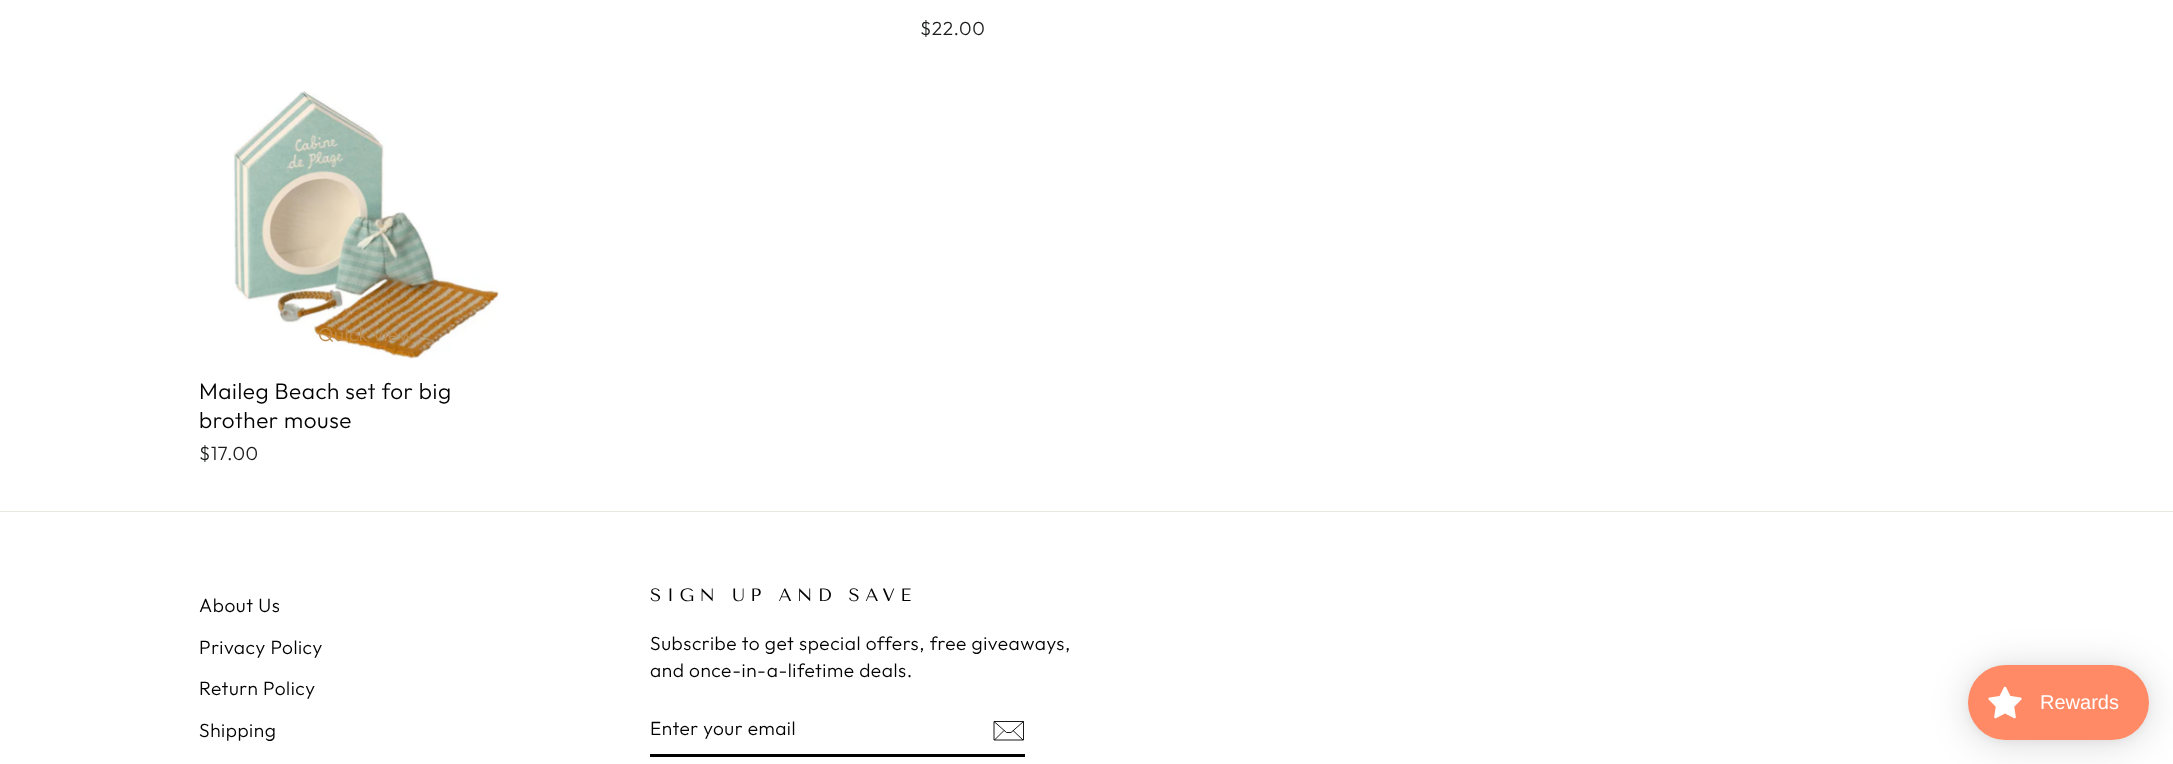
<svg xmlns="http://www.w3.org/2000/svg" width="2173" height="764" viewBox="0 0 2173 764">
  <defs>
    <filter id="blur1" x="-50%" y="-200%" width="200%" height="500%"><feGaussianBlur stdDeviation="19"/></filter>
    <filter id="blur2" x="-50%" y="-200%" width="200%" height="500%"><feGaussianBlur stdDeviation="4"/></filter>
  </defs>
  <rect width="100%" height="100%" fill="#ffffff"/>
  <text x="920" y="35" font-family="Outfit" font-size="19.1" font-weight="300" letter-spacing="0.55" fill="#1c1d1d">$22.00</text>
  <image x="233" y="91" width="268" height="269" href="img1.png"/>
  <text x="318" y="341" font-family="Outfit" font-size="19.1" font-weight="300" letter-spacing="0.5" fill="#be8d4e">Quick view</text>
  <text x="199" y="399" font-family="Outfit" font-size="22.5" font-weight="300" letter-spacing="0.55" fill="#000000">Maileg Beach set for big</text>
  <text x="199" y="428" font-family="Outfit" font-size="22.5" font-weight="300" letter-spacing="0.55" fill="#000000">brother mouse</text>
  <text x="199" y="460" font-family="Outfit" font-size="19.1" font-weight="300" letter-spacing="0.55" fill="#1c1d1d">$17.00</text>
  <rect x="0" y="511" width="2173" height="1" fill="#e8e8e1"/>
  <text x="199" y="612" font-family="Outfit" font-size="19.1" font-weight="300" letter-spacing="0.55" fill="#000000">About Us</text>
  <text x="199" y="654" font-family="Outfit" font-size="19.1" font-weight="300" letter-spacing="0.55" fill="#000000">Privacy Policy</text>
  <text x="199" y="695" font-family="Outfit" font-size="19.1" font-weight="300" letter-spacing="0.55" fill="#000000">Return Policy</text>
  <text x="199" y="737" font-family="Outfit" font-size="19.1" font-weight="300" letter-spacing="0.55" fill="#000000">Shipping</text>
  <text x="650" y="601" font-family="Tenor Sans" font-size="18" letter-spacing="5.4" fill="#000000">SIGN UP AND SAVE</text>
  <text x="650" y="650" font-family="Outfit" font-size="19.1" font-weight="300" letter-spacing="0.55" fill="#000000">Subscribe to get special offers, free giveaways,</text>
  <text x="650" y="677" font-family="Outfit" font-size="19.1" font-weight="300" letter-spacing="0.55" fill="#000000">and once-in-a-lifetime deals.</text>
  <rect x="650" y="754" width="375" height="3" fill="#000000"/>
  <text x="650" y="735" font-family="Outfit" font-size="19.1" font-weight="300" letter-spacing="0.5" fill="#000000">Enter your email</text>
  <path d="M1023.5 740H994V721.5H1023.5ZM994 721.5L1006.5 732.5H1011L1023.5 721.5M1004 730.5L994.5 740M1023 740L1013 730.5" fill="none" stroke="#000000" stroke-width="0.9"/>
  <rect x="1968" y="668" width="181" height="75" rx="37.5" fill="#000000" fill-opacity="0.15" filter="url(#blur1)"/>
  <rect x="1968" y="666" width="181" height="75" rx="37.5" fill="#000000" fill-opacity="0.05" filter="url(#blur2)"/>
  <rect x="1968" y="665" width="181" height="75" rx="37.5" fill="#ff8a65"/>
  <image x="1988" y="686" width="34" height="33" href="img2.png"/>
  <text x="2040" y="709" font-family="Liberation Sans" font-size="20" fill="#ffffff">Rewards</text>
</svg>
